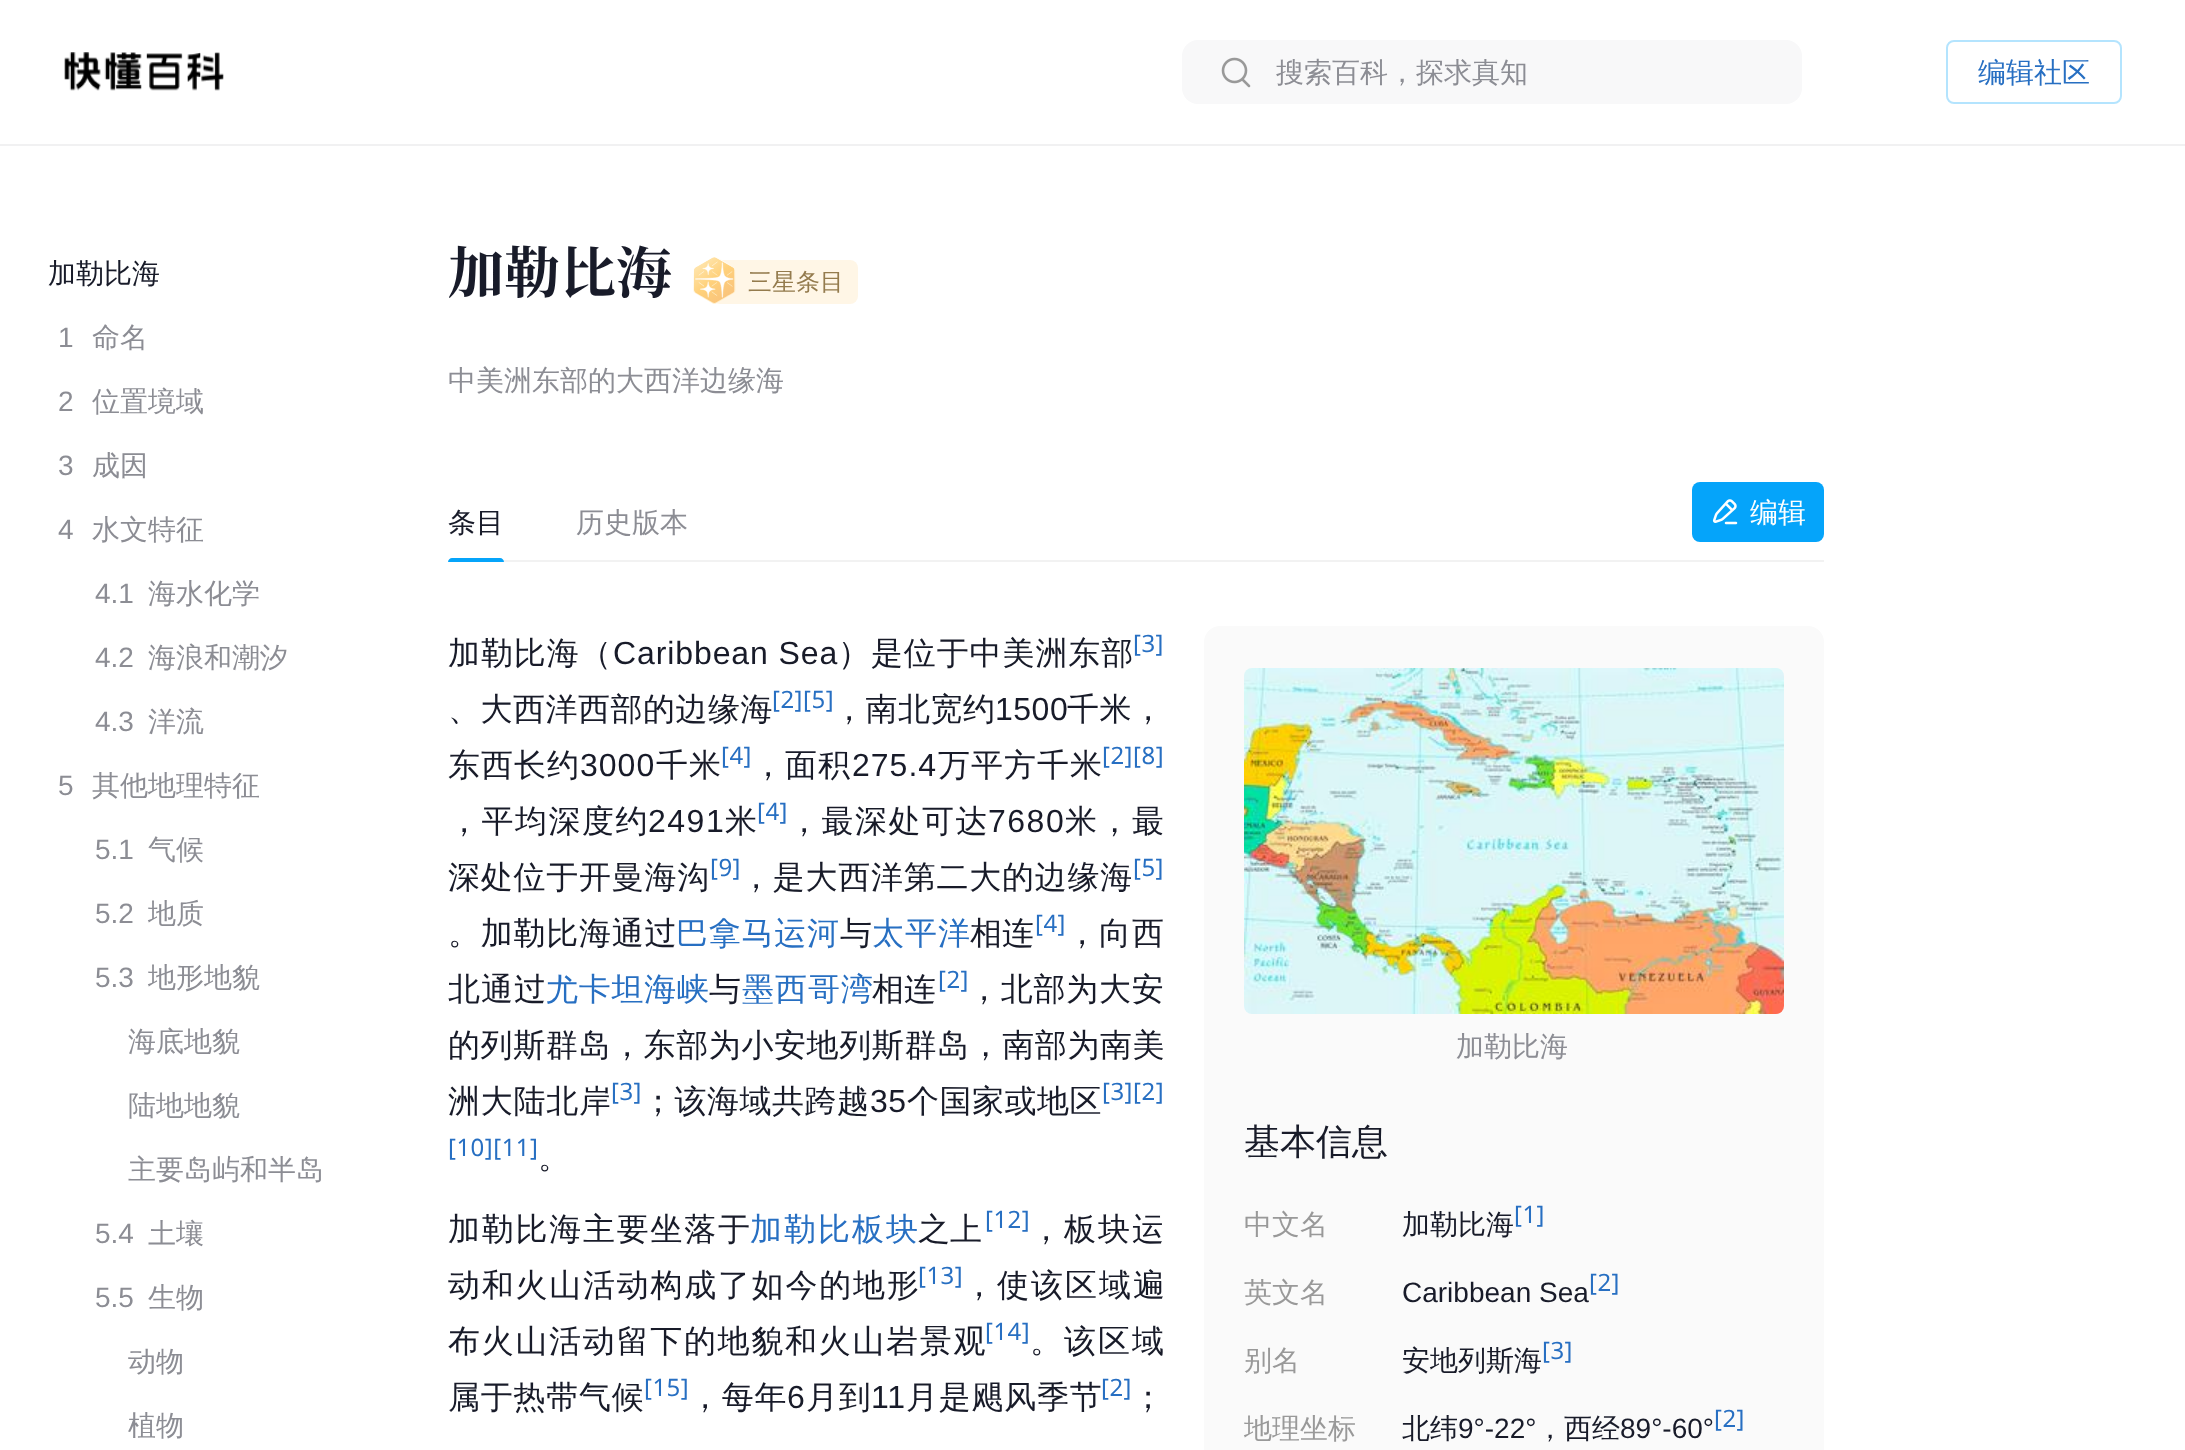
<svg xmlns="http://www.w3.org/2000/svg" width="2185" height="1450" viewBox="0 0 2185 1450">
  <rect width="100%" height="100%" fill="#ffffff"/>
  <rect x="0" y="144" width="2185" height="2" fill="#f1f1f2"/>
  <image x="64" y="52" width="160" height="39" href="img1.png"/>
  <rect x="1182" y="40" width="620" height="64" rx="16" fill="#f8f8f9"/>
  <image x="1221" y="57" width="30" height="31" href="img2.png"/>
  <text x="1276" y="82" font-family="WenQuanYi Zen Hei" font-size="28" font-weight="500" fill="#8c8d94">搜索百科，探求真知</text>
  <rect x="1947" y="41" width="174" height="62" rx="7" fill="none" stroke="#b4e4fe" stroke-width="2"/>
  <text x="1978" y="82" font-family="WenQuanYi Zen Hei" font-size="28" font-weight="500" fill="#276fc2">编辑社区</text>
  <text x="48" y="283" font-family="WenQuanYi Zen Hei" font-size="28" font-weight="500" fill="#181b29">加勒比海</text>
  <text x="58" y="347" font-family="Liberation Sans" font-size="28" fill="#8c8d94">1</text>
  <text x="92" y="347" font-family="WenQuanYi Zen Hei" font-size="28" font-weight="500" fill="#8c8d94">命名</text>
  <text x="58" y="411" font-family="Liberation Sans" font-size="28" fill="#8c8d94">2</text>
  <text x="92" y="411" font-family="WenQuanYi Zen Hei" font-size="28" font-weight="500" fill="#8c8d94">位置境域</text>
  <text x="58" y="475" font-family="Liberation Sans" font-size="28" fill="#8c8d94">3</text>
  <text x="92" y="475" font-family="WenQuanYi Zen Hei" font-size="28" font-weight="500" fill="#8c8d94">成因</text>
  <text x="58" y="539" font-family="Liberation Sans" font-size="28" fill="#8c8d94">4</text>
  <text x="92" y="539" font-family="WenQuanYi Zen Hei" font-size="28" font-weight="500" fill="#8c8d94">水文特征</text>
  <text x="95" y="603" font-family="Liberation Sans" font-size="28" fill="#8c8d94">4.1</text>
  <text x="148" y="603" font-family="WenQuanYi Zen Hei" font-size="28" font-weight="500" fill="#8c8d94">海水化学</text>
  <text x="95" y="667" font-family="Liberation Sans" font-size="28" fill="#8c8d94">4.2</text>
  <text x="148" y="667" font-family="WenQuanYi Zen Hei" font-size="28" font-weight="500" fill="#8c8d94">海浪和潮汐</text>
  <text x="95" y="731" font-family="Liberation Sans" font-size="28" fill="#8c8d94">4.3</text>
  <text x="148" y="731" font-family="WenQuanYi Zen Hei" font-size="28" font-weight="500" fill="#8c8d94">洋流</text>
  <text x="58" y="795" font-family="Liberation Sans" font-size="28" fill="#8c8d94">5</text>
  <text x="92" y="795" font-family="WenQuanYi Zen Hei" font-size="28" font-weight="500" fill="#8c8d94">其他地理特征</text>
  <text x="95" y="859" font-family="Liberation Sans" font-size="28" fill="#8c8d94">5.1</text>
  <text x="148" y="859" font-family="WenQuanYi Zen Hei" font-size="28" font-weight="500" fill="#8c8d94">气候</text>
  <text x="95" y="923" font-family="Liberation Sans" font-size="28" fill="#8c8d94">5.2</text>
  <text x="148" y="923" font-family="WenQuanYi Zen Hei" font-size="28" font-weight="500" fill="#8c8d94">地质</text>
  <text x="95" y="987" font-family="Liberation Sans" font-size="28" fill="#8c8d94">5.3</text>
  <text x="148" y="987" font-family="WenQuanYi Zen Hei" font-size="28" font-weight="500" fill="#8c8d94">地形地貌</text>
  <text x="128" y="1051" font-family="WenQuanYi Zen Hei" font-size="28" font-weight="500" fill="#8c8d94">海底地貌</text>
  <text x="128" y="1115" font-family="WenQuanYi Zen Hei" font-size="28" font-weight="500" fill="#8c8d94">陆地地貌</text>
  <text x="128" y="1179" font-family="WenQuanYi Zen Hei" font-size="28" font-weight="500" fill="#8c8d94">主要岛屿和半岛</text>
  <text x="95" y="1243" font-family="Liberation Sans" font-size="28" fill="#8c8d94">5.4</text>
  <text x="148" y="1243" font-family="WenQuanYi Zen Hei" font-size="28" font-weight="500" fill="#8c8d94">土壤</text>
  <text x="95" y="1307" font-family="Liberation Sans" font-size="28" fill="#8c8d94">5.5</text>
  <text x="148" y="1307" font-family="WenQuanYi Zen Hei" font-size="28" font-weight="500" fill="#8c8d94">生物</text>
  <text x="128" y="1371" font-family="WenQuanYi Zen Hei" font-size="28" font-weight="500" fill="#8c8d94">动物</text>
  <text x="128" y="1435" font-family="WenQuanYi Zen Hei" font-size="28" font-weight="500" fill="#8c8d94">植物</text>
  <text x="448" y="293" font-family="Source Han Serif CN" font-size="56" font-weight="bold" fill="#181b29">加勒比海</text>
  <rect x="712" y="260" width="146" height="44" rx="8" fill="#fff6e6"/>
  <image x="693" y="257" width="43" height="47" href="img3.png"/>
  <text x="748" y="290" font-family="WenQuanYi Zen Hei" font-size="24" font-weight="500" fill="#947b4d">三星条目</text>
  <text x="448" y="390" font-family="WenQuanYi Zen Hei" font-size="28" font-weight="500" fill="#8c8d94">中美洲东部的大西洋边缘海</text>
  <text x="448" y="532" font-family="WenQuanYi Zen Hei" font-size="28" font-weight="500" fill="#181b29">条目</text>
  <text x="576" y="532" font-family="WenQuanYi Zen Hei" font-size="28" font-weight="500" fill="#8c8d94">历史版本</text>
  <rect x="448" y="560" width="1376" height="2" fill="#f2f2f2"/>
  <path d="M452 558H500C502 558 504 560 504 562H448C448 560 450 558 452 558Z" fill="#05a4fa"/>
  <rect x="1692" y="482" width="132" height="60" rx="8" fill="#05a4fa"/>
  <image x="1712" y="499" width="26" height="26" href="img4.png"/>
  <text x="1750" y="522" font-family="WenQuanYi Zen Hei" font-size="28" font-weight="500" fill="#ffffff">编辑</text>
  <text x="448" y="664" font-family="WenQuanYi Zen Hei" font-size="32" font-weight="500" letter-spacing="0.9" fill="#181b29">加勒比海（</text>
  <text x="613" y="664" font-family="Liberation Sans" font-size="32" letter-spacing="0.9" fill="#181b29">Caribbean Sea</text>
  <text x="838" y="664" font-family="WenQuanYi Zen Hei" font-size="32" font-weight="500" letter-spacing="0.9" fill="#181b29">）是位于中美洲东部</text>
  <text x="1133" y="652" font-family="Noto Sans" font-size="24" letter-spacing="0.5" fill="#276fc2">[3]</text>
  <text x="448" y="720" font-family="WenQuanYi Zen Hei" font-size="32" font-weight="500" letter-spacing="0.5" fill="#181b29">、大西洋西部的边缘海</text>
  <text x="772" y="708" font-family="Noto Sans" font-size="24" letter-spacing="0.5" fill="#276fc2">[2][5]</text>
  <text x="833" y="720" font-family="WenQuanYi Zen Hei" font-size="32" font-weight="500" letter-spacing="0.5" fill="#181b29">，南北宽约</text>
  <text x="995" y="720" font-family="Liberation Sans" font-size="32" letter-spacing="0.5" fill="#181b29">1500</text>
  <text x="1067" y="720" font-family="WenQuanYi Zen Hei" font-size="32" font-weight="500" letter-spacing="0.5" fill="#181b29">千米，</text>
  <text x="448" y="776" font-family="WenQuanYi Zen Hei" font-size="32" font-weight="500" letter-spacing="1" fill="#181b29">东西长约</text>
  <text x="580" y="776" font-family="Liberation Sans" font-size="32" letter-spacing="1" fill="#181b29">3000</text>
  <text x="656" y="776" font-family="WenQuanYi Zen Hei" font-size="32" font-weight="500" letter-spacing="1" fill="#181b29">千米</text>
  <text x="721" y="764" font-family="Noto Sans" font-size="24" letter-spacing="0.5" fill="#276fc2">[4]</text>
  <text x="752" y="776" font-family="WenQuanYi Zen Hei" font-size="32" font-weight="500" letter-spacing="1" fill="#181b29">，面积</text>
  <text x="852" y="776" font-family="Liberation Sans" font-size="32" letter-spacing="1" fill="#181b29">275.4</text>
  <text x="938" y="776" font-family="WenQuanYi Zen Hei" font-size="32" font-weight="500" letter-spacing="1" fill="#181b29">万平方千米</text>
  <text x="1102" y="764" font-family="Noto Sans" font-size="24" letter-spacing="0.5" fill="#276fc2">[2][8]</text>
  <text x="448" y="832" font-family="WenQuanYi Zen Hei" font-size="32" font-weight="500" letter-spacing="1.5" fill="#181b29">，平均深度约</text>
  <text x="648" y="832" font-family="Liberation Sans" font-size="32" letter-spacing="1.5" fill="#181b29">2491</text>
  <text x="725" y="832" font-family="WenQuanYi Zen Hei" font-size="32" font-weight="500" letter-spacing="1.5" fill="#181b29">米</text>
  <text x="757" y="820" font-family="Noto Sans" font-size="24" letter-spacing="0.5" fill="#276fc2">[4]</text>
  <text x="788" y="832" font-family="WenQuanYi Zen Hei" font-size="32" font-weight="500" letter-spacing="1.5" fill="#181b29">，最深处可达</text>
  <text x="988" y="832" font-family="Liberation Sans" font-size="32" letter-spacing="1.5" fill="#181b29">7680</text>
  <text x="1065" y="832" font-family="WenQuanYi Zen Hei" font-size="32" font-weight="500" letter-spacing="1.5" fill="#181b29">米，最</text>
  <text x="448" y="888" font-family="WenQuanYi Zen Hei" font-size="32" font-weight="500" letter-spacing="0.75" fill="#181b29">深处位于开曼海沟</text>
  <text x="710" y="876" font-family="Noto Sans" font-size="24" letter-spacing="0.5" fill="#276fc2">[9]</text>
  <text x="740" y="888" font-family="WenQuanYi Zen Hei" font-size="32" font-weight="500" letter-spacing="0.75" fill="#181b29">，是大西洋第二大的边缘海</text>
  <text x="1133" y="876" font-family="Noto Sans" font-size="24" letter-spacing="0.5" fill="#276fc2">[5]</text>
  <text x="448" y="944" font-family="WenQuanYi Zen Hei" font-size="32" font-weight="500" letter-spacing="0.75" fill="#181b29">。加勒比海通过</text>
  <text x="676" y="944" font-family="WenQuanYi Zen Hei" font-size="32" font-weight="500" letter-spacing="0.75" fill="#276fc2">巴拿马运河</text>
  <text x="840" y="944" font-family="WenQuanYi Zen Hei" font-size="32" font-weight="500" fill="#181b29">与</text>
  <text x="872" y="944" font-family="WenQuanYi Zen Hei" font-size="32" font-weight="500" letter-spacing="1" fill="#276fc2">太平洋</text>
  <text x="970" y="944" font-family="WenQuanYi Zen Hei" font-size="32" font-weight="500" fill="#181b29">相连</text>
  <text x="1035" y="932" font-family="Noto Sans" font-size="24" letter-spacing="0.5" fill="#276fc2">[4]</text>
  <text x="1066" y="944" font-family="WenQuanYi Zen Hei" font-size="32" font-weight="500" letter-spacing="1" fill="#181b29">，向西</text>
  <text x="448" y="1000" font-family="WenQuanYi Zen Hei" font-size="32" font-weight="500" letter-spacing="1" fill="#181b29">北通过</text>
  <text x="546" y="1000" font-family="WenQuanYi Zen Hei" font-size="32" font-weight="500" letter-spacing="0.75" fill="#276fc2">尤卡坦海峡</text>
  <text x="709" y="1000" font-family="WenQuanYi Zen Hei" font-size="32" font-weight="500" fill="#181b29">与</text>
  <text x="742" y="1000" font-family="WenQuanYi Zen Hei" font-size="32" font-weight="500" letter-spacing="1" fill="#276fc2">墨西哥湾</text>
  <text x="872" y="1000" font-family="WenQuanYi Zen Hei" font-size="32" font-weight="500" fill="#181b29">相连</text>
  <text x="938" y="988" font-family="Noto Sans" font-size="24" letter-spacing="0.5" fill="#276fc2">[2]</text>
  <text x="968" y="1000" font-family="WenQuanYi Zen Hei" font-size="32" font-weight="500" letter-spacing="0.75" fill="#181b29">，北部为大安</text>
  <text x="448" y="1056" font-family="WenQuanYi Zen Hei" font-size="32" font-weight="500" letter-spacing="0.6" fill="#181b29">的列斯群岛，东部为小安地列斯群岛，南部为南美</text>
  <text x="448" y="1112" font-family="WenQuanYi Zen Hei" font-size="32" font-weight="500" letter-spacing="0.75" fill="#181b29">洲大陆北岸</text>
  <text x="611" y="1100" font-family="Noto Sans" font-size="24" letter-spacing="0.5" fill="#276fc2">[3]</text>
  <text x="642" y="1112" font-family="WenQuanYi Zen Hei" font-size="32" font-weight="500" letter-spacing="0.5" fill="#181b29">；该海域共跨越</text>
  <text x="870" y="1112" font-family="Liberation Sans" font-size="32" letter-spacing="0.5" fill="#181b29">35</text>
  <text x="907" y="1112" font-family="WenQuanYi Zen Hei" font-size="32" font-weight="500" letter-spacing="0.5" fill="#181b29">个国家或地区</text>
  <text x="1102" y="1100" font-family="Noto Sans" font-size="24" letter-spacing="0.5" fill="#276fc2">[3][2]</text>
  <text x="448" y="1156" font-family="Noto Sans" font-size="24" letter-spacing="0.5" fill="#276fc2">[10][11]</text>
  <text x="538" y="1168" font-family="WenQuanYi Zen Hei" font-size="32" font-weight="500" fill="#181b29">。</text>
  <text x="448" y="1240" font-family="WenQuanYi Zen Hei" font-size="32" font-weight="500" letter-spacing="1.75" fill="#181b29">加勒比海主要坐落于</text>
  <text x="750" y="1240" font-family="WenQuanYi Zen Hei" font-size="32" font-weight="500" letter-spacing="2" fill="#276fc2">加勒比板块</text>
  <text x="918" y="1240" font-family="WenQuanYi Zen Hei" font-size="32" font-weight="500" fill="#181b29">之上</text>
  <text x="985" y="1228" font-family="Noto Sans" font-size="24" letter-spacing="0.5" fill="#276fc2">[12]</text>
  <text x="1030" y="1240" font-family="WenQuanYi Zen Hei" font-size="32" font-weight="500" letter-spacing="2" fill="#181b29">，板块运</text>
  <text x="448" y="1296" font-family="WenQuanYi Zen Hei" font-size="32" font-weight="500" letter-spacing="1.75" fill="#181b29">动和火山活动构成了如今的地形</text>
  <text x="918" y="1284" font-family="Noto Sans" font-size="24" letter-spacing="0.5" fill="#276fc2">[13]</text>
  <text x="963" y="1296" font-family="WenQuanYi Zen Hei" font-size="32" font-weight="500" letter-spacing="2" fill="#181b29">，使该区域遍</text>
  <text x="448" y="1352" font-family="WenQuanYi Zen Hei" font-size="32" font-weight="500" letter-spacing="1.7" fill="#181b29">布火山活动留下的地貌和火山岩景观</text>
  <text x="985" y="1340" font-family="Noto Sans" font-size="24" letter-spacing="0.5" fill="#276fc2">[14]</text>
  <text x="1030" y="1352" font-family="WenQuanYi Zen Hei" font-size="32" font-weight="500" letter-spacing="2" fill="#181b29">。该区域</text>
  <text x="448" y="1408" font-family="WenQuanYi Zen Hei" font-size="32" font-weight="500" letter-spacing="0.75" fill="#181b29">属于热带气候</text>
  <text x="644" y="1396" font-family="Noto Sans" font-size="24" letter-spacing="0.5" fill="#276fc2">[15]</text>
  <text x="689" y="1408" font-family="WenQuanYi Zen Hei" font-size="32" font-weight="500" letter-spacing="0.75" fill="#181b29">，每年</text>
  <text x="787" y="1408" font-family="Liberation Sans" font-size="32" letter-spacing="0.75" fill="#181b29">6</text>
  <text x="806" y="1408" font-family="WenQuanYi Zen Hei" font-size="32" font-weight="500" letter-spacing="0.75" fill="#181b29">月到</text>
  <text x="871" y="1408" font-family="Liberation Sans" font-size="32" letter-spacing="0.75" fill="#181b29">11</text>
  <text x="906" y="1408" font-family="WenQuanYi Zen Hei" font-size="32" font-weight="500" letter-spacing="0.75" fill="#181b29">月是飓风季节</text>
  <text x="1101" y="1396" font-family="Noto Sans" font-size="24" letter-spacing="0.5" fill="#276fc2">[2]</text>
  <text x="1132" y="1408" font-family="WenQuanYi Zen Hei" font-size="32" font-weight="500" fill="#181b29">；</text>
  <rect x="1204" y="626" width="620" height="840" rx="16" fill="#fafafa"/>
  <image x="1244" y="668" width="540" height="346" href="img5.png"/>
  <text x="1456" y="1056" font-family="WenQuanYi Zen Hei" font-size="28" font-weight="500" fill="#8c8d94">加勒比海</text>
  <text x="1244" y="1154" font-family="WenQuanYi Zen Hei" font-size="36" font-weight="500" fill="#181b29">基本信息</text>
  <text x="1244" y="1234" font-family="WenQuanYi Zen Hei" font-size="28" font-weight="500" fill="#999999">中文名</text>
  <text x="1402" y="1234" font-family="WenQuanYi Zen Hei" font-size="28" font-weight="500" fill="#181b29">加勒比海</text>
  <text x="1514" y="1223" font-family="Noto Sans" font-size="24" letter-spacing="0.5" fill="#276fc2">[1]</text>
  <text x="1244" y="1302" font-family="WenQuanYi Zen Hei" font-size="28" font-weight="500" fill="#999999">英文名</text>
  <text x="1402" y="1302" font-family="Liberation Sans" font-size="28" fill="#181b29">Caribbean Sea</text>
  <text x="1589" y="1291" font-family="Noto Sans" font-size="24" letter-spacing="0.5" fill="#276fc2">[2]</text>
  <text x="1244" y="1370" font-family="WenQuanYi Zen Hei" font-size="28" font-weight="500" fill="#999999">别名</text>
  <text x="1402" y="1370" font-family="WenQuanYi Zen Hei" font-size="28" font-weight="500" fill="#181b29">安地列斯海</text>
  <text x="1542" y="1359" font-family="Noto Sans" font-size="24" letter-spacing="0.5" fill="#276fc2">[3]</text>
  <text x="1244" y="1438" font-family="WenQuanYi Zen Hei" font-size="28" font-weight="500" fill="#999999">地理坐标</text>
  <text x="1402" y="1438" font-family="WenQuanYi Zen Hei" font-size="28" font-weight="500" fill="#181b29">北纬</text>
  <text x="1458" y="1438" font-family="Liberation Sans" font-size="28" fill="#181b29">9°-22°</text>
  <text x="1536" y="1438" font-family="WenQuanYi Zen Hei" font-size="28" font-weight="500" fill="#181b29">，西经</text>
  <text x="1620" y="1438" font-family="Liberation Sans" font-size="28" fill="#181b29">89°-60°</text>
  <text x="1714" y="1427" font-family="Noto Sans" font-size="24" letter-spacing="0.5" fill="#276fc2">[2]</text>
</svg>
